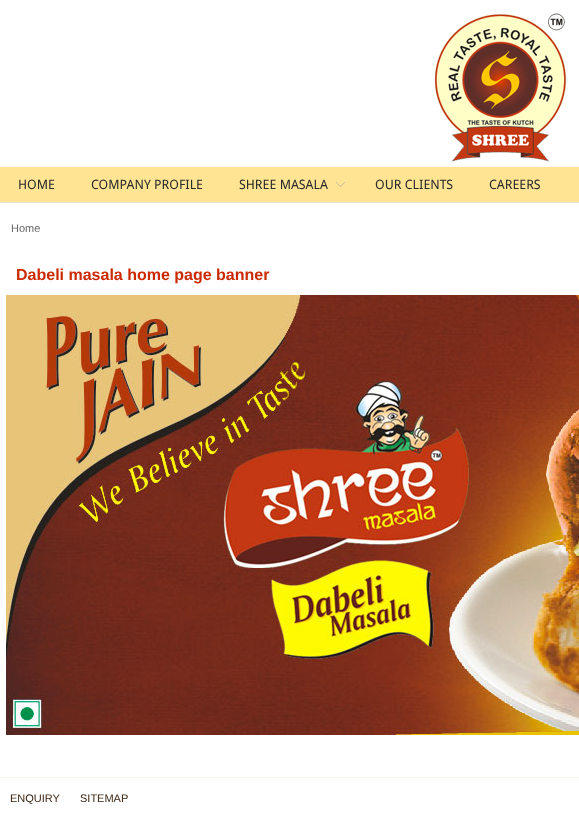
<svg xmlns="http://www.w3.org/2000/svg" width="579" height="813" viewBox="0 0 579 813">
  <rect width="100%" height="100%" fill="#ffffff"/>
  <image x="435" y="13" width="131" height="149" href="img1.png"/>
  <rect x="0" y="167" width="579" height="35" fill="#ffe593"/>
  <rect x="0" y="202" width="579" height="1" fill="#eae1db"/>
  <rect x="0" y="165" width="579" height="2" fill="#fffbf3"/>
  <text x="18" y="189" font-family="Droid Sans" font-size="13" fill="#2a2a2a">HOME</text>
  <text x="91" y="189" font-family="Droid Sans" font-size="13" fill="#2a2a2a">COMPANY PROFILE</text>
  <image x="335" y="182" width="11" height="5" href="img2.png"/>
  <text x="239" y="189" font-family="Droid Sans" font-size="13" fill="#2a2a2a">SHREE MASALA</text>
  <text x="375" y="189" font-family="Droid Sans" font-size="13" fill="#2a2a2a">OUR CLIENTS</text>
  <text x="489" y="189" font-family="Droid Sans" font-size="13" fill="#2a2a2a">CAREERS</text>
  <text x="11" y="232" font-family="Liberation Sans" font-size="11" fill="#666666">Home</text>
  <text x="16" y="280" font-family="Liberation Sans" font-size="16" font-weight="bold" fill="#cc2900">Dabeli masala home page banner</text>
  <image x="6" y="295" width="573" height="440" href="img3.png"/>
  <rect x="0" y="777" width="579" height="1" fill="#f5f1ed"/>
  <text x="10" y="802" font-family="Liberation Sans" font-size="11" fill="#3c2513">ENQUIRY</text>
  <text x="80" y="802" font-family="Liberation Sans" font-size="11" fill="#3c2513">SITEMAP</text>
</svg>
